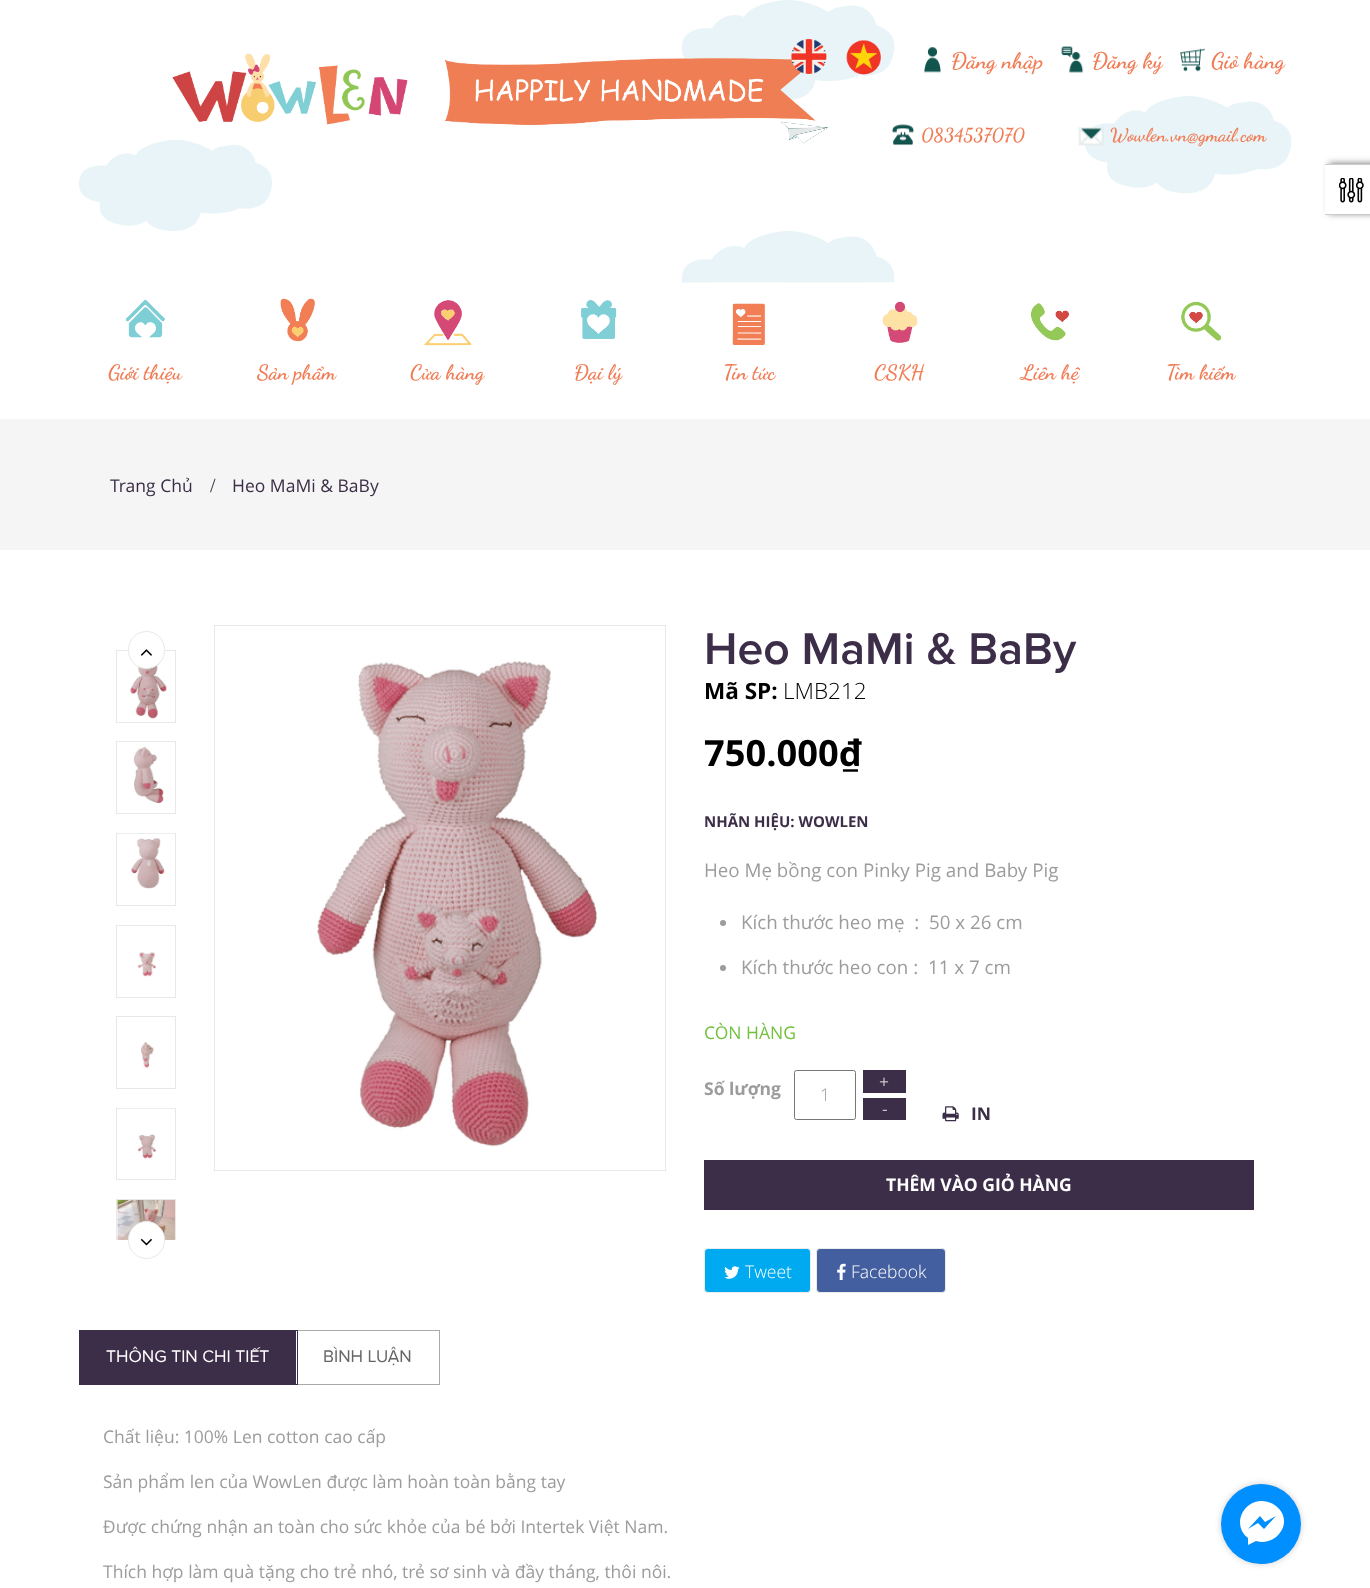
<svg xmlns="http://www.w3.org/2000/svg" width="1370" height="1588" viewBox="0 0 1370 1588">
  <defs>
    <clipPath id="clip1"><rect x="116" y="650" width="60" height="590"/></clipPath>
    <clipPath id="clip2"><path d="M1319 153H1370V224H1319ZM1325 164H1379V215H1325Z" clip-rule="evenodd"/></clipPath>
    <filter id="blur1" x="-50%" y="-200%" width="200%" height="500%"><feGaussianBlur stdDeviation="3"/></filter>
  </defs>
  <rect width="100%" height="100%" fill="#ffffff"/>
  <image x="78" y="0" width="1214" height="283" href="img1.png"/>
  <image x="790" y="39" width="37" height="35" href="img2.png"/>
  <image x="846" y="40" width="35" height="35" href="img3.png"/>
  <image x="924" y="47" width="17" height="26" href="img4.png"/>
  <text x="951" y="68" font-family="Dancing Script" font-size="22.5" font-weight="bold" fill="#f17d56">Đăng nhập</text>
  <image x="1061" y="46" width="23" height="27" href="img5.png"/>
  <text x="1092" y="68" font-family="Dancing Script" font-size="22.5" font-weight="bold" fill="#f17d56">Đăng ký</text>
  <image x="1180" y="48" width="25" height="24" href="img6.png"/>
  <text x="1211" y="68" font-family="Dancing Script" font-size="22.5" font-weight="bold" fill="#f17d56">Giỏ hàng</text>
  <image x="781" y="121" width="47" height="23" href="img7.png"/>
  <image x="892" y="124" width="22" height="22" href="img8.png"/>
  <text x="921" y="141" font-family="Dancing Script" font-size="18.75" font-weight="bold" fill="#f17d56">0834537070</text>
  <image x="1078" y="127" width="26" height="19" href="img9.png"/>
  <text x="1110" y="141" font-family="Dancing Script" font-size="18.75" font-weight="bold" fill="#f17d56">Wowlen.vn@gmail.com</text>
  <image x="125" y="299" width="40" height="39" href="img10.png"/>
  <text x="108" y="379" font-family="Dancing Script" font-size="21" font-weight="bold" fill="#f17d56">Giới thiệu</text>
  <image x="280" y="298" width="35" height="44" href="img11.png"/>
  <text x="257" y="379" font-family="Dancing Script" font-size="21" font-weight="bold" fill="#f17d56">Sản phẩm</text>
  <image x="424" y="300" width="48" height="46" href="img12.png"/>
  <text x="410" y="379" font-family="Dancing Script" font-size="21" font-weight="bold" fill="#f17d56">Cửa hàng</text>
  <image x="581" y="300" width="36" height="39" href="img13.png"/>
  <text x="574" y="379" font-family="Dancing Script" font-size="21" font-weight="bold" fill="#f17d56">Đại lý</text>
  <image x="711" y="282" width="75" height="64" href="img14.png"/>
  <text x="723" y="379" font-family="Dancing Script" font-size="21" font-weight="bold" fill="#f17d56">Tin tức</text>
  <image x="863" y="282" width="55" height="61" href="img15.png"/>
  <text x="874" y="379" font-family="Dancing Script" font-size="21" font-weight="bold" fill="#f17d56">CSKH</text>
  <image x="1030" y="303" width="40" height="38" href="img16.png"/>
  <text x="1021" y="379" font-family="Dancing Script" font-size="21" font-weight="bold" fill="#f17d56">Liên hệ</text>
  <image x="1181" y="301" width="41" height="40" href="img17.png"/>
  <text x="1166" y="379" font-family="Dancing Script" font-size="21" font-weight="bold" fill="#f17d56">Tìm kiếm</text>
  <rect x="0" y="419" width="1370" height="131" fill="#f5f5f5"/>
  <text x="110" y="492" font-family="Open Sans" font-size="17.5" fill="#3c2e48">Trang Chủ</text>
  <text x="210" y="492" font-family="Liberation Serif" font-size="20" fill="#3c2e48">/</text>
  <text x="232" y="492" font-family="Open Sans" font-size="17.5" fill="#3c2e48">Heo MaMi &amp; BaBy</text>
  <rect x="116.5" y="650.5" width="59" height="72" fill="none" stroke="#e8e8e8"/>
  <image x="130" y="655" width="37" height="64" href="img20.png"/>
  <rect x="128.5" y="631.5" width="36" height="37" rx="18" fill="#ffffff" stroke="#e8e8e8"/>
  <image x="140" y="649" width="12" height="7" href="img18.png"/>
  <g clip-path="url(#clip1)">
    <rect x="116.5" y="1199.5" width="59" height="73" fill="none" stroke="#e8e8e8"/>
  </g>
  <image x="117" y="1200" width="58" height="40" href="img26.png"/>
  <rect x="128.5" y="1221.5" width="36" height="37" rx="18" fill="#ffffff" stroke="#e8e8e8"/>
  <image x="140" y="1238" width="12" height="8" href="img19.png"/>
  <rect x="116.5" y="741.5" width="59" height="72" fill="none" stroke="#e8e8e8"/>
  <image x="133" y="746" width="31" height="58" href="img21.png"/>
  <rect x="116.5" y="833.5" width="59" height="72" fill="none" stroke="#e8e8e8"/>
  <image x="118" y="833" width="57" height="56" href="img22.png"/>
  <rect x="116.5" y="925.5" width="59" height="72" fill="none" stroke="#e8e8e8"/>
  <image x="137" y="952" width="19" height="25" href="img23.png"/>
  <rect x="116.5" y="1016.5" width="59" height="72" fill="none" stroke="#e8e8e8"/>
  <image x="141" y="1042" width="13" height="26" href="img24.png"/>
  <rect x="116.5" y="1108.5" width="59" height="71" fill="none" stroke="#e8e8e8"/>
  <image x="118" y="1108" width="57" height="51" href="img25.png"/>
  <rect x="214.5" y="625.5" width="451" height="545" fill="none" stroke="#e8e8e8"/>
  <image x="317" y="661" width="281" height="486" href="img27.png"/>
  <text x="704" y="664" font-family="Proxima Nova" font-size="46.25" font-weight="600" fill="#3c2e48">Heo MaMi &amp; BaBy</text>
  <text x="704" y="699" font-family="Open Sans" font-size="22.5" font-weight="bold" fill="#000000">Mã SP:</text>
  <text x="783" y="699" font-family="Open Sans" font-size="22.5" font-weight="300" fill="#000000">LMB212</text>
  <text x="704" y="766" font-family="Open Sans" font-size="36.25" font-weight="bold" fill="#000000">750.000₫</text>
  <text x="704" y="827" font-family="Open Sans" font-size="15" font-weight="bold" fill="#3c2e48">NHÃN HIỆU: WOWLEN</text>
  <text x="704" y="877" font-family="Open Sans" font-size="18.75" fill="#9c9c9c">Heo Mẹ bồng con Pinky Pig and Baby Pig</text>
  <circle cx="723" cy="923" r="3" fill="#9c9c9c"/>
  <text x="741" y="929" font-family="Open Sans" font-size="18.75" fill="#9c9c9c" xml:space="preserve">Kích thước heo mẹ  :  50 x 26 cm</text>
  <circle cx="723" cy="968" r="3" fill="#9c9c9c"/>
  <text x="741" y="974" font-family="Open Sans" font-size="18.75" fill="#9c9c9c" xml:space="preserve">Kích thước heo con :  11 x 7 cm</text>
  <text x="704" y="1039" font-family="Open Sans" font-size="17.5" fill="#72c13d">CÒN HÀNG</text>
  <text x="704" y="1095" font-family="Open Sans" font-size="17.5" font-weight="bold" fill="#9c9c9c">Số lượng</text>
  <rect x="863" y="1070" width="43" height="23" fill="#3c2e48"/>
  <text x="879" y="1088" font-family="Open Sans" font-size="17.5" font-weight="300" fill="#ffffff">+</text>
  <rect x="794.5" y="1070.5" width="61" height="49" rx="2" fill="none" stroke="#767676"/>
  <text x="820" y="1101" font-family="Open Sans" font-size="17.5" font-weight="300" fill="#9c9c9c">1</text>
  <rect x="863" y="1098" width="43" height="22" fill="#3c2e48"/>
  <text x="882" y="1115" font-family="Open Sans" font-size="17.5" font-weight="300" fill="#ffffff">-</text>
  <image x="942" y="1106" width="17" height="16" href="img28.png"/>
  <text x="971" y="1120" font-family="Open Sans" font-size="17.5" font-weight="bold" fill="#3c2e48">IN</text>
  <rect x="704" y="1160" width="550" height="50" fill="#3c2e48"/>
  <text x="886" y="1191" font-family="Open Sans" font-size="17.5" font-weight="bold" fill="#ffffff">THÊM VÀO GIỎ HÀNG</text>
  <rect x="704.5" y="1248.5" width="106" height="44" rx="3.5" fill="#00aaf0" stroke="#ebebeb"/>
  <image x="724" y="1266" width="16" height="13" href="img29.png"/>
  <text x="745" y="1278" font-family="Open Sans" font-size="17.5" font-weight="300" fill="#ffffff">Tweet</text>
  <rect x="816.5" y="1248.5" width="129" height="44" rx="3.5" fill="#435f9f" stroke="#ebebeb"/>
  <image x="837" y="1263" width="9" height="17" href="img30.png"/>
  <text x="851" y="1278" font-family="Open Sans" font-size="17.5" font-weight="300" fill="#ffffff">Facebook</text>
  <rect x="79.5" y="1330.5" width="218" height="54" fill="none" stroke="#3c2e48"/>
  <rect x="80" y="1331" width="216" height="53" fill="#3c2e48"/>
  <text x="106" y="1362" font-family="Proxima Nova" font-size="17.5" fill="#ffffff">THÔNG TIN CHI TIẾT</text>
  <rect x="298" y="1330" width="142" height="1" fill="#aaaaaa"/>
  <rect x="439" y="1330" width="1" height="55" fill="#aaaaaa"/>
  <rect x="298" y="1384" width="142" height="1" fill="#aaaaaa"/>
  <text x="323" y="1362" font-family="Proxima Nova" font-size="17.5" fill="#666666">BÌNH LUẬN</text>
  <text x="103" y="1443" font-family="Open Sans" font-size="17.5" fill="#9c9c9c">Chất liệu: 100% Len cotton cao cấp</text>
  <text x="103" y="1488" font-family="Open Sans" font-size="17.5" fill="#9c9c9c">Sản phẩm len của WowLen được làm hoàn toàn bằng tay</text>
  <text x="103" y="1533" font-family="Open Sans" font-size="17.5" fill="#9c9c9c">Được chứng nhận an toàn cho sức khỏe của bé bởi Intertek Việt Nam.</text>
  <text x="103" y="1578" font-family="Open Sans" font-size="17.5" fill="#9c9c9c">Thích hợp làm quà tặng cho trẻ nhó, trẻ sơ sinh và đầy tháng, thôi nôi.</text>
  <g clip-path="url(#clip2)">
    <rect x="1329" y="163" width="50" height="51" fill="#888888" filter="url(#blur1)"/>
  </g>
  <rect x="1325" y="164" width="45" height="1" fill="#cccccc"/>
  <rect x="1325" y="214" width="45" height="1" fill="#cccccc"/>
  <image x="1339" y="178" width="25" height="25" href="img31.png"/>
  <rect x="1221" y="1484" width="80" height="80" rx="40" fill="#000000" fill-opacity="0.2" filter="url(#blur1)"/>
  <circle cx="1261" cy="1524" r="40" fill="#008fff"/>
  <path d="M1262 1501C1242 1501 1232 1526 1248 1538V1545L1256 1541C1277 1547 1295 1521 1276 1506C1272 1503 1267 1501 1262 1501ZM1264 1529L1258 1523L1248 1529L1260 1516L1265 1522L1276 1516Z" fill="#ffffff"/>
</svg>
